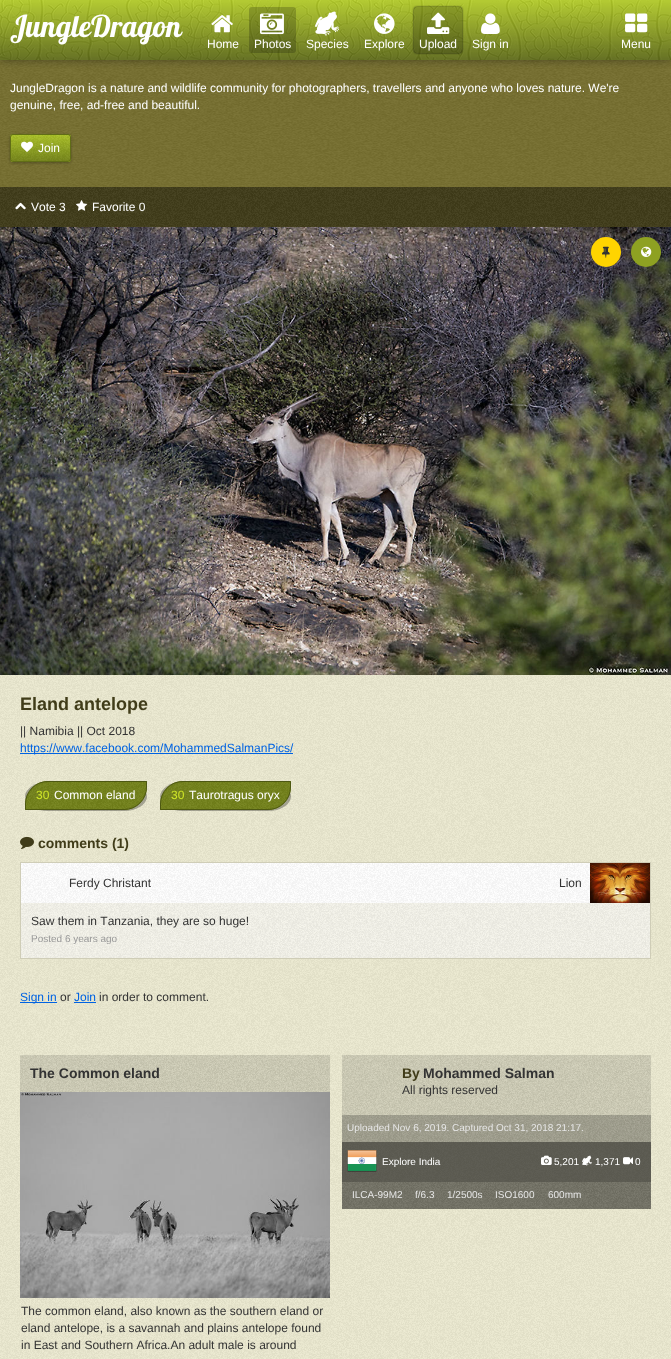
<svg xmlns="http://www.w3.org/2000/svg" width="671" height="1359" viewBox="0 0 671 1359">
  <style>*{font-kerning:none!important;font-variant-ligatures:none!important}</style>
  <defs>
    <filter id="blur1" x="-50%" y="-200%" width="200%" height="500%"><feGaussianBlur stdDeviation="5"/></filter>
    <clipPath id="clip1"><path d="M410 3H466V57H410ZM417 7H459C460.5 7 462 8.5 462 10V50C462 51.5 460.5 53 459 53H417C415.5 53 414 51.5 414 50V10C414 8.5 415.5 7 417 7Z" clip-rule="evenodd"/></clipPath>
    <filter id="blur2" x="-50%" y="-200%" width="200%" height="500%"><feGaussianBlur stdDeviation="1"/></filter>
    <filter id="blur3" x="-50%" y="-200%" width="200%" height="500%"><feGaussianBlur stdDeviation="1.5"/></filter>
    <filter id="blur4" x="-50%" y="-200%" width="200%" height="500%"><feGaussianBlur stdDeviation="0.5"/></filter>
  </defs>
  <rect width="100%" height="100%" fill="#edead1"/>
  <image x="0" y="675" width="671" height="684" href="img1.png"/>
  <rect x="0" y="60" width="671" height="127" fill="#776f2f"/>
  <image x="0" y="60" width="671" height="127" href="img10.png"/>
  <rect x="0" y="0" width="671" height="60" fill="#000000" fill-opacity="0.4" filter="url(#blur1)"/>
  <rect x="0" y="0" width="671" height="60" fill="#bbd910"/>
  <image x="0" y="0" width="671" height="60" href="img2.png"/>
  <text x="10" y="37" font-family="Lobster" font-size="30" fill="#ffffff">JungleDragon</text>
  <image x="211" y="15" width="22" height="18" href="img3.png"/>
  <text x="207" y="48" font-family="Liberation Sans" font-size="12" fill="#ffffff">Home</text>
  <rect x="249" y="7" width="47" height="46" rx="3" fill="#000000" fill-opacity="0.2"/>
  <image x="259" y="13" width="25" height="22" href="img4.png"/>
  <text x="254" y="48" font-family="Liberation Sans" font-size="12" fill="#ffffff">Photos</text>
  <image x="315" y="11" width="25" height="25" href="img5.png"/>
  <text x="306" y="48" font-family="Liberation Sans" font-size="12" fill="#ffffff">Species</text>
  <image x="374" y="13" width="21" height="21" href="img6.png"/>
  <text x="364" y="48" font-family="Liberation Sans" font-size="12" fill="#ffffff">Explore</text>
  <g clip-path="url(#clip1)">
    <rect x="414" y="7" width="48" height="46" rx="3" fill="#000000" fill-opacity="0.8" filter="url(#blur2)"/>
  </g>
  <rect x="414" y="7" width="48" height="46" rx="3" fill="#000000" fill-opacity="0.2"/>
  <image x="426" y="12" width="24" height="22" href="img7.png"/>
  <text x="419" y="48" font-family="Liberation Sans" font-size="12" fill="#ffffff">Upload</text>
  <image x="481" y="13" width="19" height="21" href="img8.png"/>
  <text x="472" y="48" font-family="Liberation Sans" font-size="12" fill="#ffffff">Sign in</text>
  <image x="625" y="13" width="23" height="20" href="img9.png"/>
  <text x="621" y="48" font-family="Liberation Sans" font-size="12" fill="#ffffff">Menu</text>
  <text x="10" y="92" font-family="Liberation Sans" font-size="12" fill="#ffffff">JungleDragon is a nature and wildlife community for photographers, travellers and anyone who loves nature. We're</text>
  <text x="10" y="109" font-family="Liberation Sans" font-size="12" fill="#ffffff">genuine, free, ad-free and beautiful.</text>
  <rect x="10" y="135" width="61" height="28" rx="3" fill="#000000" fill-opacity="0.3" filter="url(#blur3)"/>
  <rect x="10" y="134" width="61" height="28" rx="3" fill="#abc227"/>
  <image x="10" y="134" width="61" height="28" href="img11.png"/>
  <rect x="10.5" y="134.5" width="60" height="27" rx="2.5" fill="none" stroke="#606d16"/>
  <image x="21" y="141" width="12" height="11" href="img12.png"/>
  <text x="38" y="152" font-family="Liberation Sans" font-size="12" fill="#ffffff">Join</text>
  <rect x="0" y="187" width="671" height="40" fill="#403c19"/>
  <image x="0" y="187" width="671" height="40" href="img13.png"/>
  <image x="15" y="202" width="11" height="8" href="img14.png"/>
  <text x="31" y="211" font-family="Liberation Sans" font-size="12" fill="#ffffff">Vote 3</text>
  <image x="76" y="200" width="12" height="11" href="img15.png"/>
  <text x="92" y="211" font-family="Liberation Sans" font-size="12" fill="#ffffff">Favorite 0</text>
  <image x="0" y="227" width="671" height="448" href="img16.png"/>
  <circle cx="606" cy="252" r="15" fill="#ffd400"/>
  <image x="602" y="246" width="8" height="12" href="img17.png"/>
  <circle cx="646" cy="252" r="15" fill="#8ea122"/>
  <image x="641" y="246" width="11" height="11" href="img18.png"/>
  <text x="20" y="710" font-family="Liberation Sans" font-size="18" font-weight="bold" fill="#403c19">Eland antelope</text>
  <text x="20" y="735" font-family="Liberation Sans" font-size="12" fill="#333333">|| Namibia || Oct 2018</text>
  <rect x="20" y="753" width="273" height="1" fill="#0063e2"/>
  <text x="20" y="752" font-family="Liberation Sans" font-size="12" fill="#0063e2">https://www.facebook.com/MohammedSalmanPics/</text>
  <rect x="25" y="782" width="122" height="29" rx="23" fill="#000000" fill-opacity="0.3" filter="url(#blur4)"/>
  <path d="M48 781H147V787C147 799.5 136.5 810 124 810H25V804C25 791.5 35.5 781 48 781Z" fill="#73821a"/>
  <image x="25" y="781" width="122" height="29" href="img19.png"/>
  <path d="M48 781.5H146.5V787C146.5 799.5 136.5 809.5 124 809.5H25.5V804C25.5 791.5 35.5 781.5 48 781.5Z" fill="none" stroke="#4d5812"/>
  <text x="36" y="799" font-family="Liberation Sans" font-size="12" fill="#d0e628">30</text>
  <text x="54" y="799" font-family="Liberation Sans" font-size="12" fill="#ffffff">Common eland</text>
  <rect x="160" y="782" width="131" height="29" rx="23" fill="#000000" fill-opacity="0.3" filter="url(#blur4)"/>
  <path d="M183 781H291V787C291 799.5 280.5 810 268 810H160V804C160 791.5 170.5 781 183 781Z" fill="#73821a"/>
  <image x="160" y="781" width="131" height="29" href="img20.png"/>
  <path d="M183 781.5H290.5V787C290.5 799.5 280.5 809.5 268 809.5H160.5V804C160.5 791.5 170.5 781.5 183 781.5Z" fill="none" stroke="#4d5812"/>
  <text x="171" y="799" font-family="Liberation Sans" font-size="12" fill="#d0e628">30</text>
  <text x="189" y="799" font-family="Liberation Sans" font-size="12" fill="#ffffff">Taurotragus oryx</text>
  <image x="20" y="836" width="14" height="13" href="img21.png"/>
  <text x="38" y="848" font-family="Liberation Sans" font-size="14" font-weight="bold" fill="#403c19">comments (1)</text>
  <rect x="20.5" y="862.5" width="630" height="96" fill="none" stroke="#cfcdb7"/>
  <rect x="21" y="863" width="569" height="40" fill="#ffffff"/>
  <image x="21" y="863" width="569" height="40" href="img22.png"/>
  <text x="69" y="887" font-family="Liberation Sans" font-size="12" fill="#333333">Ferdy Christant</text>
  <text x="559" y="887" font-family="Liberation Sans" font-size="12" fill="#333333">Lion</text>
  <image x="590" y="863" width="60" height="40" href="img23.png"/>
  <rect x="21" y="903" width="629" height="55" fill="#ffffff" fill-opacity="0.6"/>
  <image x="21" y="903" width="629" height="55" href="img24.png"/>
  <text x="31" y="925" font-family="Liberation Sans" font-size="12" fill="#333333">Saw them in Tanzania, they are so huge!</text>
  <text x="31" y="942" font-family="Liberation Sans" font-size="10" fill="#999999">Posted 6 years ago</text>
  <rect x="20" y="1002" width="37" height="1" fill="#0063e2"/>
  <text x="20" y="1001" font-family="Liberation Sans" font-size="12" fill="#0063e2">Sign in</text>
  <text x="60" y="1001" font-family="Liberation Sans" font-size="12" fill="#333333">or</text>
  <text x="74" y="1001" font-family="Liberation Sans" font-size="12" fill="#0063e2">Join</text>
  <rect x="74" y="1002" width="22" height="1" fill="#0063e2"/>
  <text x="99" y="1001" font-family="Liberation Sans" font-size="12" fill="#333333">in order to comment.</text>
  <rect x="20" y="1055" width="310" height="37" fill="#000000" fill-opacity="0.1"/>
  <image x="20" y="1055" width="310" height="37" href="img25.png"/>
  <text x="30" y="1078" font-family="Liberation Sans" font-size="14" font-weight="bold" fill="#333333">The Common eland</text>
  <image x="20" y="1092" width="310" height="206" href="img26.png"/>
  <text x="21" y="1315" font-family="Liberation Sans" font-size="12" fill="#333333">The common eland, also known as the southern eland or</text>
  <text x="21" y="1332" font-family="Liberation Sans" font-size="12" fill="#333333">eland antelope, is a savannah and plains antelope found</text>
  <text x="21" y="1349" font-family="Liberation Sans" font-size="12" fill="#333333">in East and Southern Africa.An adult male is around</text>
  <rect x="342" y="1055" width="309" height="60" fill="#000000" fill-opacity="0.1"/>
  <image x="342" y="1055" width="309" height="60" href="img27.png"/>
  <text x="402" y="1078" font-family="Liberation Sans" font-size="14" font-weight="bold" fill="#403c19">By</text>
  <text x="423" y="1078" font-family="Liberation Sans" font-size="14" font-weight="bold" fill="#333333">Mohammed Salman</text>
  <text x="402" y="1094" font-family="Liberation Sans" font-size="12" fill="#333333">All rights reserved</text>
  <rect x="342" y="1115" width="309" height="27" fill="#000000" fill-opacity="0.3"/>
  <image x="342" y="1115" width="309" height="27" href="img28.png"/>
  <text x="347" y="1131" font-family="Liberation Sans" font-size="10" fill="#e6e6e6">Uploaded Nov 6, 2019. Captured Oct 31, 2018 21:17.</text>
  <rect x="342" y="1142" width="309" height="40" fill="#000000" fill-opacity="0.6"/>
  <image x="347" y="1150" width="30" height="22" href="img29.png"/>
  <text x="382" y="1165" font-family="Liberation Sans" font-size="10" fill="#ffffff">Explore India</text>
  <image x="541" y="1155" width="11" height="10" href="img30.png"/>
  <text x="554" y="1165" font-family="Liberation Sans" font-size="10" fill="#ffffff">5,201</text>
  <image x="582" y="1155" width="10" height="11" href="img31.png"/>
  <text x="595" y="1165" font-family="Liberation Sans" font-size="10" fill="#ffffff">1,371</text>
  <image x="623" y="1157" width="10" height="8" href="img32.png"/>
  <text x="635" y="1165" font-family="Liberation Sans" font-size="10" fill="#ffffff">0</text>
  <rect x="342" y="1182" width="309" height="27" fill="#000000" fill-opacity="0.5"/>
  <image x="342" y="1182" width="309" height="27" href="img33.png"/>
  <text x="352" y="1198" font-family="Liberation Sans" font-size="10" fill="#e6e6e6">ILCA-99M2</text>
  <text x="415" y="1198" font-family="Liberation Sans" font-size="10" fill="#e6e6e6">f/6.3</text>
  <text x="447" y="1198" font-family="Liberation Sans" font-size="10" fill="#e6e6e6">1/2500s</text>
  <text x="495" y="1198" font-family="Liberation Sans" font-size="10" fill="#e6e6e6">ISO1600</text>
  <text x="548" y="1198" font-family="Liberation Sans" font-size="10" fill="#e6e6e6">600mm</text>
</svg>
